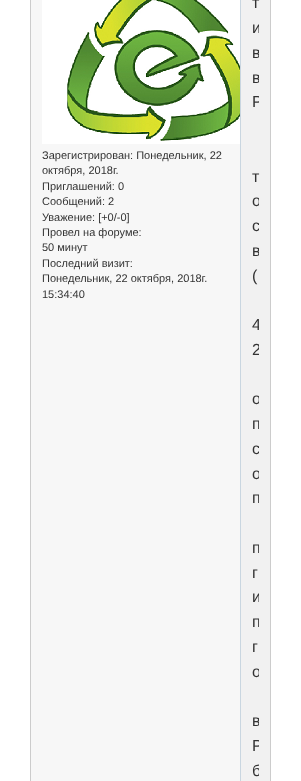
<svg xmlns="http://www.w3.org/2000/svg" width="301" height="781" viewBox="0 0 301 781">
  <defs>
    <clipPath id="clip1"><rect x="252" y="0" width="7" height="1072"/></clipPath>
  </defs>
  <rect width="100%" height="100%" fill="#ffffff"/>
  <rect x="31" y="0" width="209" height="781" fill="#f7f7f7"/>
  <rect x="270" y="0" width="1" height="781" fill="#cccccc"/>
  <rect x="30" y="0" width="1" height="781" fill="#cccccc"/>
  <image x="42" y="0" width="198" height="144" href="img1.png"/>
  <text x="42" y="159" font-family="Liberation Sans" font-size="11" fill="#333333">Зарегистрирован: Понедельник, 22</text>
  <text x="42" y="174" font-family="Liberation Sans" font-size="11" fill="#333333">октября, 2018г.</text>
  <text x="42" y="190" font-family="Liberation Sans" font-size="11" fill="#333333">Приглашений: 0</text>
  <text x="42" y="205" font-family="Liberation Sans" font-size="11" fill="#333333">Сообщений: 2</text>
  <text x="42" y="221" font-family="Liberation Sans" font-size="11" fill="#333333">Уважение: [+0/-0]</text>
  <text x="42" y="236" font-family="Liberation Sans" font-size="11" fill="#333333">Провел на форуме:</text>
  <text x="42" y="251" font-family="Liberation Sans" font-size="11" fill="#333333">50 минут</text>
  <text x="42" y="267" font-family="Liberation Sans" font-size="11" fill="#333333">Последний визит:</text>
  <text x="42" y="282" font-family="Liberation Sans" font-size="11" fill="#333333">Понедельник, 22 октября, 2018г.</text>
  <text x="42" y="298" font-family="Liberation Sans" font-size="11" fill="#333333">15:34:40</text>
  <rect x="241" y="0" width="29" height="781" fill="#f1f1f1"/>
  <rect x="240" y="0" width="1" height="781" fill="#c9d6e0"/>
  <text x="252" y="8" font-family="Liberation Sans" font-size="16" fill="#333333">т</text>
  <g clip-path="url(#clip1)">
    <text x="252" y="33" font-family="Liberation Sans" font-size="16" fill="#333333">и</text>
    <text x="252" y="58" font-family="Liberation Sans" font-size="16" fill="#333333">в</text>
    <text x="252" y="83" font-family="Liberation Sans" font-size="16" fill="#333333">в</text>
    <text x="252" y="107" font-family="Liberation Sans" font-size="16" fill="#333333">Р</text>
  </g>
  <text x="252" y="182" font-family="Liberation Sans" font-size="16" fill="#333333">т</text>
  <g clip-path="url(#clip1)">
    <text x="252" y="206" font-family="Liberation Sans" font-size="16" fill="#333333">о</text>
    <text x="252" y="231" font-family="Liberation Sans" font-size="16" fill="#333333">с</text>
    <text x="252" y="256" font-family="Liberation Sans" font-size="16" fill="#333333">в</text>
  </g>
  <text x="252" y="281" font-family="Liberation Sans" font-size="16" fill="#333333">(</text>
  <g clip-path="url(#clip1)">
    <text x="252" y="330" font-family="Liberation Sans" font-size="16" fill="#333333">4</text>
    <text x="252" y="355" font-family="Liberation Sans" font-size="16" fill="#333333">2</text>
    <text x="252" y="404" font-family="Liberation Sans" font-size="16" fill="#333333">о</text>
    <text x="252" y="429" font-family="Liberation Sans" font-size="16" fill="#333333">п</text>
    <text x="252" y="454" font-family="Liberation Sans" font-size="16" fill="#333333">с</text>
    <text x="252" y="479" font-family="Liberation Sans" font-size="16" fill="#333333">о</text>
    <text x="252" y="503" font-family="Liberation Sans" font-size="16" fill="#333333">п</text>
    <text x="252" y="553" font-family="Liberation Sans" font-size="16" fill="#333333">п</text>
  </g>
  <text x="252" y="578" font-family="Liberation Sans" font-size="16" fill="#333333">г</text>
  <g clip-path="url(#clip1)">
    <text x="252" y="602" font-family="Liberation Sans" font-size="16" fill="#333333">и</text>
    <text x="252" y="627" font-family="Liberation Sans" font-size="16" fill="#333333">п</text>
  </g>
  <text x="252" y="652" font-family="Liberation Sans" font-size="16" fill="#333333">г</text>
  <g clip-path="url(#clip1)">
    <text x="252" y="677" font-family="Liberation Sans" font-size="16" fill="#333333">о</text>
    <text x="252" y="726" font-family="Liberation Sans" font-size="16" fill="#333333">в</text>
    <text x="252" y="751" font-family="Liberation Sans" font-size="16" fill="#333333">Р</text>
    <text x="252" y="776" font-family="Liberation Sans" font-size="16" fill="#333333">б</text>
  </g>
</svg>
